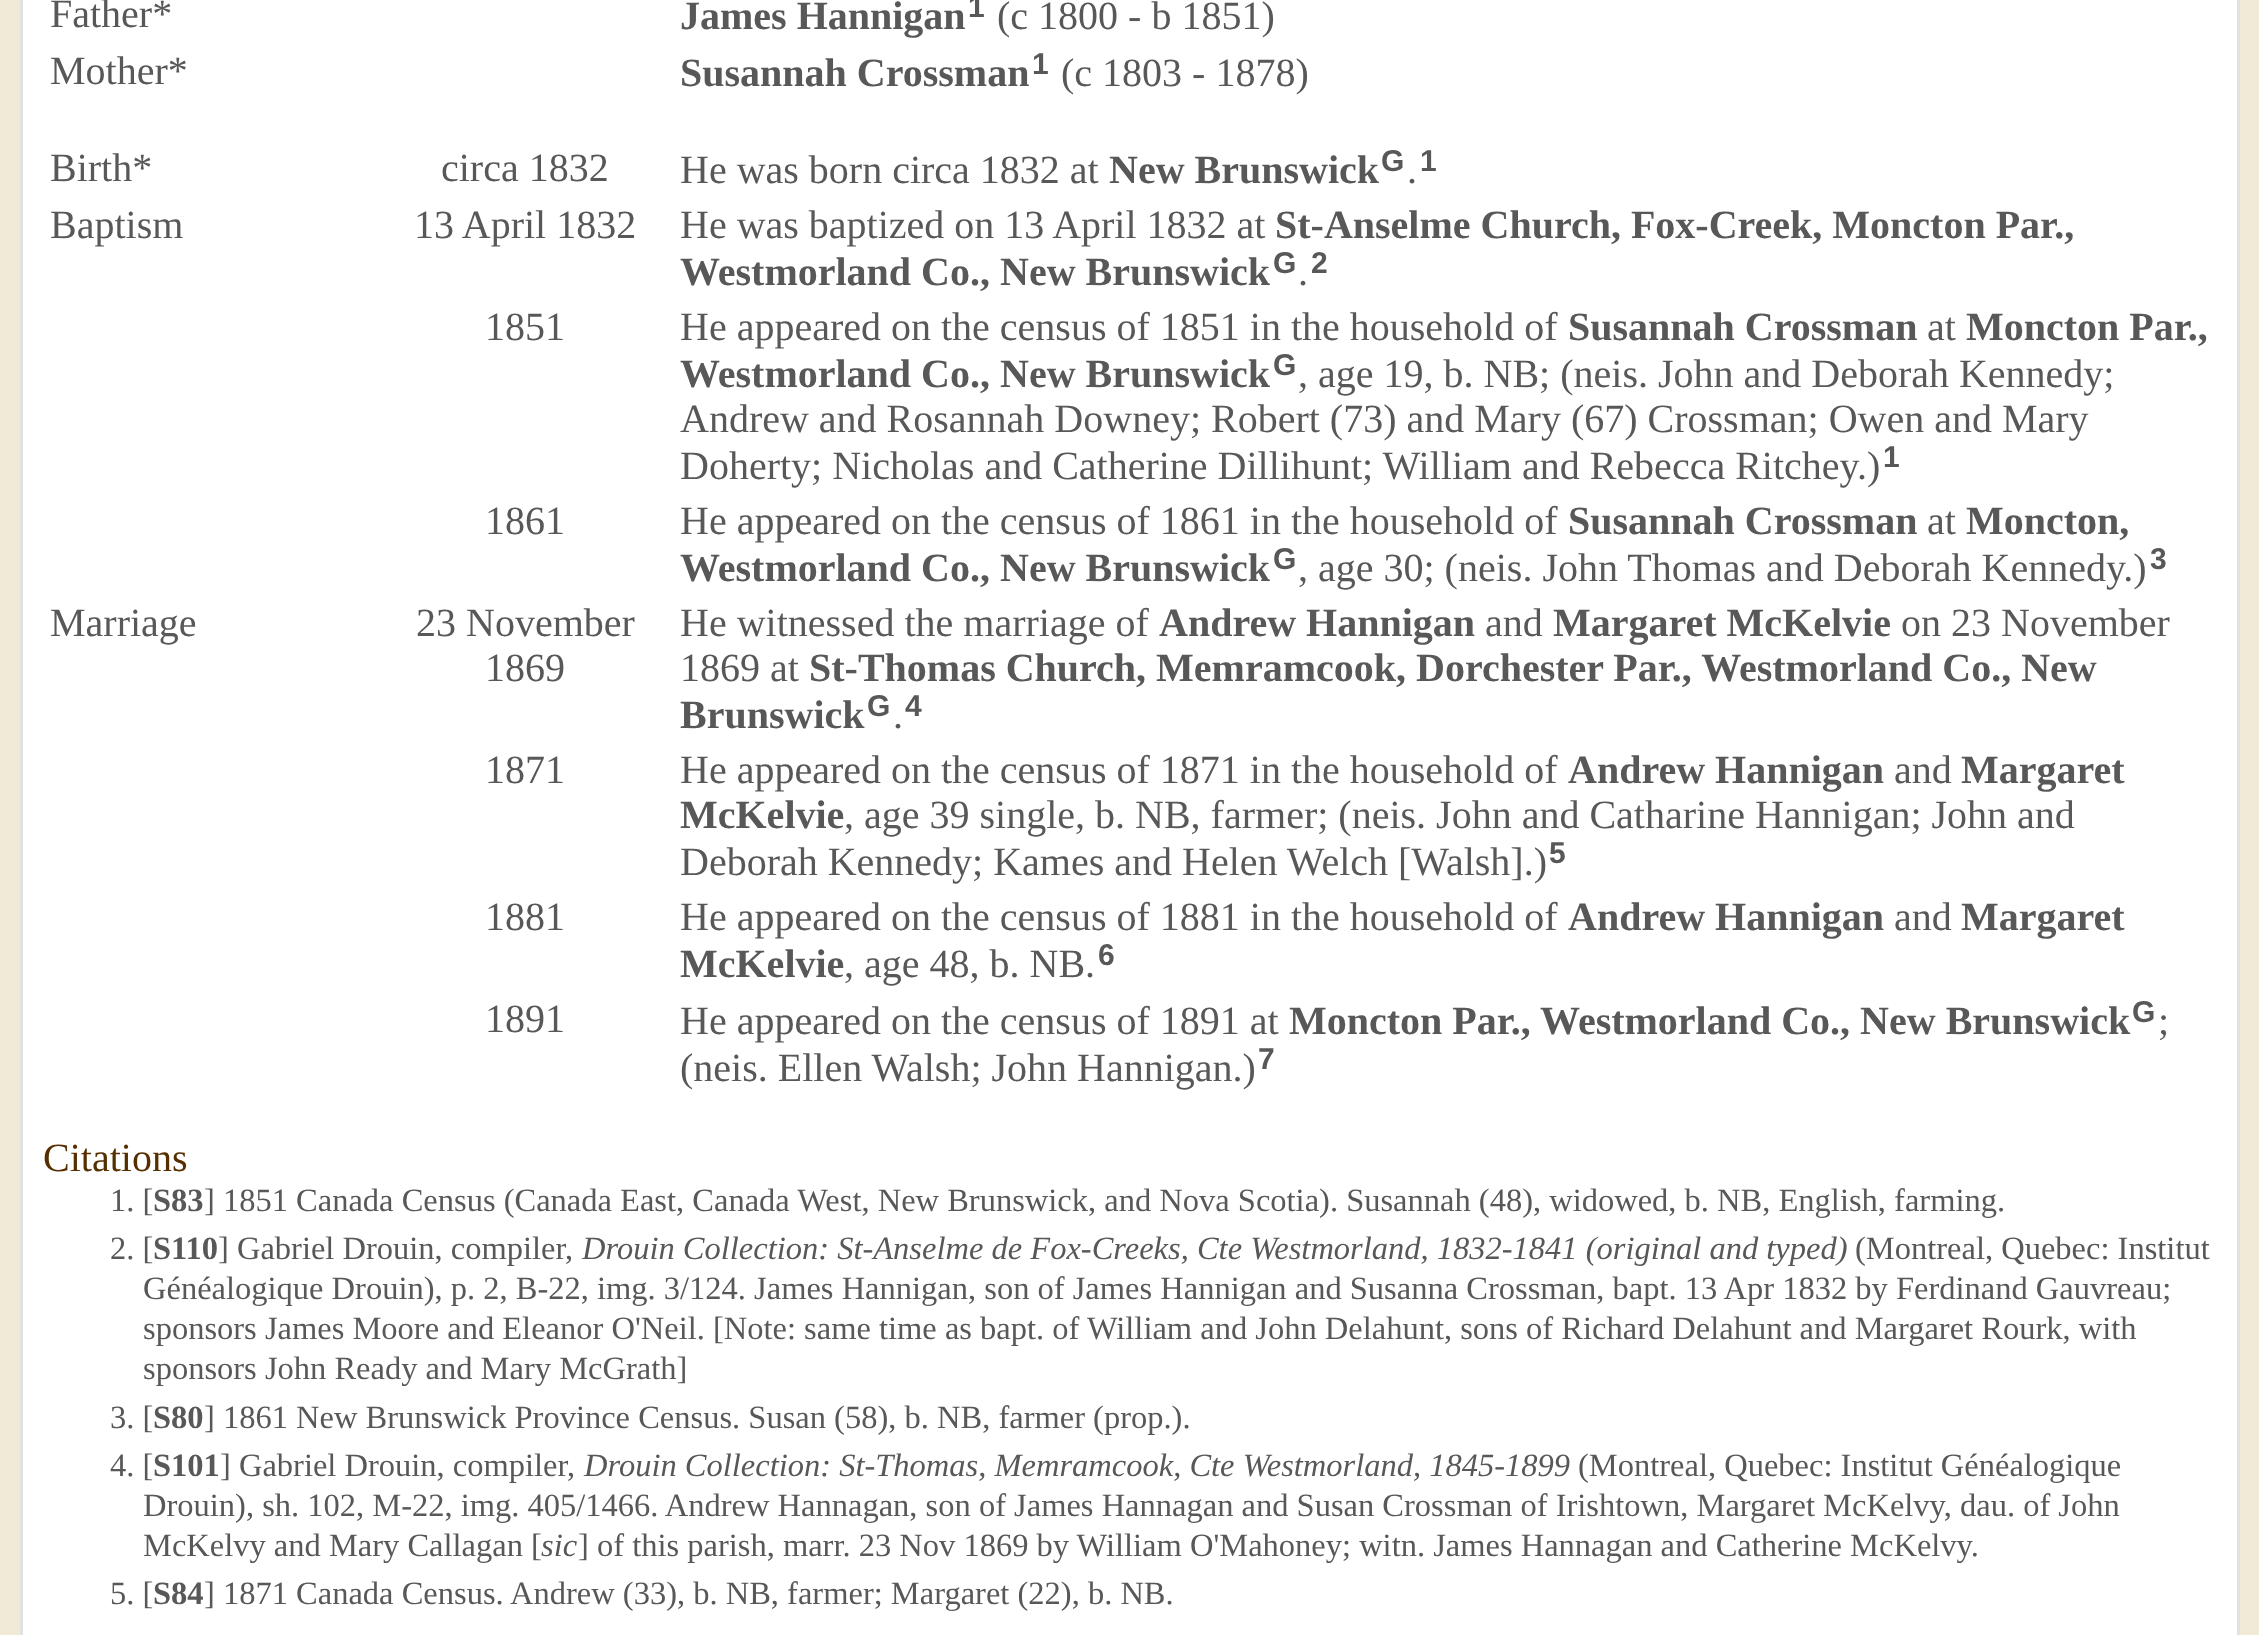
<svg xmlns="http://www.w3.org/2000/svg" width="2259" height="1635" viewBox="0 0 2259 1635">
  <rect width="100%" height="100%" fill="#f0ead6"/>
  <rect x="21.5" y="-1.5" width="2217" height="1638" fill="#ffffff" stroke="#e1e1e1" stroke-width="3"/>
  <text x="50" y="27" font-family="Liberation Serif" font-size="40" fill="#585858">Father*</text>
  <text x="680" y="29" font-family="Liberation Serif" font-size="40" font-weight="bold" fill="#585858">James Hannigan</text>
  <text x="968" y="17" font-family="Liberation Sans" font-size="30" font-weight="bold" fill="#585858">1</text>
  <text x="997" y="29" font-family="Liberation Serif" font-size="40" fill="#585858">(c 1800 - b 1851)</text>
  <text x="50" y="84" font-family="Liberation Serif" font-size="40" fill="#585858">Mother*</text>
  <text x="680" y="86" font-family="Liberation Serif" font-size="40" font-weight="bold" fill="#585858">Susannah Crossman</text>
  <text x="1032" y="74" font-family="Liberation Sans" font-size="30" font-weight="bold" fill="#585858">1</text>
  <text x="1061" y="86" font-family="Liberation Serif" font-size="40" fill="#585858">(c 1803 - 1878)</text>
  <text x="50" y="181" font-family="Liberation Serif" font-size="40" fill="#585858">Birth*</text>
  <text x="441" y="181" font-family="Liberation Serif" font-size="40" fill="#585858">circa 1832</text>
  <text x="680" y="183" font-family="Liberation Serif" font-size="40" fill="#585858">He was born circa 1832 at</text>
  <text x="1109" y="183" font-family="Liberation Serif" font-size="40" font-weight="bold" fill="#585858">New Brunswick</text>
  <text x="1381" y="171" font-family="Liberation Sans" font-size="30" font-weight="bold" fill="#585858">G</text>
  <text x="1407" y="183" font-family="Liberation Serif" font-size="40" fill="#585858">.</text>
  <text x="1420" y="171" font-family="Liberation Sans" font-size="30" font-weight="bold" fill="#585858">1</text>
  <text x="50" y="238" font-family="Liberation Serif" font-size="40" fill="#585858">Baptism</text>
  <text x="414" y="238" font-family="Liberation Serif" font-size="40" fill="#585858">13 April 1832</text>
  <text x="680" y="238" font-family="Liberation Serif" font-size="40" fill="#585858">He was baptized on 13 April 1832 at</text>
  <text x="1275" y="238" font-family="Liberation Serif" font-size="40" font-weight="bold" fill="#585858">St-Anselme Church, Fox-Creek, Moncton Par.,</text>
  <text x="680" y="285" font-family="Liberation Serif" font-size="40" font-weight="bold" fill="#585858">Westmorland Co., New Brunswick</text>
  <text x="1273" y="273" font-family="Liberation Sans" font-size="30" font-weight="bold" fill="#585858">G</text>
  <text x="1298" y="285" font-family="Liberation Serif" font-size="40" fill="#585858">.</text>
  <text x="1311" y="273" font-family="Liberation Sans" font-size="30" font-weight="bold" fill="#585858">2</text>
  <text x="485" y="340" font-family="Liberation Serif" font-size="40" fill="#585858">1851</text>
  <text x="680" y="340" font-family="Liberation Serif" font-size="40" fill="#585858">He appeared on the census of 1851 in the household of</text>
  <text x="1568" y="340" font-family="Liberation Serif" font-size="40" font-weight="bold" fill="#585858">Susannah Crossman</text>
  <text x="1927" y="340" font-family="Liberation Serif" font-size="40" fill="#585858">at</text>
  <text x="1966" y="340" font-family="Liberation Serif" font-size="40" font-weight="bold" fill="#585858">Moncton Par.,</text>
  <text x="680" y="387" font-family="Liberation Serif" font-size="40" font-weight="bold" fill="#585858">Westmorland Co., New Brunswick</text>
  <text x="1273" y="375" font-family="Liberation Sans" font-size="30" font-weight="bold" fill="#585858">G</text>
  <text x="1298" y="387" font-family="Liberation Serif" font-size="40" fill="#585858">, age 19, b. NB; (neis. John and Deborah Kennedy;</text>
  <text x="680" y="432" font-family="Liberation Serif" font-size="40" fill="#585858">Andrew and Rosannah Downey; Robert (73) and Mary (67) Crossman; Owen and Mary</text>
  <text x="680" y="479" font-family="Liberation Serif" font-size="40" fill="#585858">Doherty; Nicholas and Catherine Dillihunt; William and Rebecca Ritchey.)</text>
  <text x="1883" y="467" font-family="Liberation Sans" font-size="30" font-weight="bold" fill="#585858">1</text>
  <text x="485" y="534" font-family="Liberation Serif" font-size="40" fill="#585858">1861</text>
  <text x="680" y="534" font-family="Liberation Serif" font-size="40" fill="#585858">He appeared on the census of 1861 in the household of</text>
  <text x="1568" y="534" font-family="Liberation Serif" font-size="40" font-weight="bold" fill="#585858">Susannah Crossman</text>
  <text x="1927" y="534" font-family="Liberation Serif" font-size="40" fill="#585858">at</text>
  <text x="1966" y="534" font-family="Liberation Serif" font-size="40" font-weight="bold" fill="#585858">Moncton,</text>
  <text x="680" y="581" font-family="Liberation Serif" font-size="40" font-weight="bold" fill="#585858">Westmorland Co., New Brunswick</text>
  <text x="1273" y="569" font-family="Liberation Sans" font-size="30" font-weight="bold" fill="#585858">G</text>
  <text x="1298" y="581" font-family="Liberation Serif" font-size="40" fill="#585858">, age 30; (neis. John Thomas and Deborah Kennedy.)</text>
  <text x="2150" y="569" font-family="Liberation Sans" font-size="30" font-weight="bold" fill="#585858">3</text>
  <text x="50" y="636" font-family="Liberation Serif" font-size="40" fill="#585858">Marriage</text>
  <text x="416" y="636" font-family="Liberation Serif" font-size="40" fill="#585858">23 November</text>
  <text x="485" y="681" font-family="Liberation Serif" font-size="40" fill="#585858">1869</text>
  <text x="680" y="636" font-family="Liberation Serif" font-size="40" fill="#585858">He witnessed the marriage of</text>
  <text x="1159" y="636" font-family="Liberation Serif" font-size="40" font-weight="bold" fill="#585858">Andrew Hannigan</text>
  <text x="1485" y="636" font-family="Liberation Serif" font-size="40" fill="#585858">and</text>
  <text x="1553" y="636" font-family="Liberation Serif" font-size="40" font-weight="bold" fill="#585858">Margaret McKelvie</text>
  <text x="1901" y="636" font-family="Liberation Serif" font-size="40" fill="#585858">on 23 November</text>
  <text x="680" y="681" font-family="Liberation Serif" font-size="40" fill="#585858">1869 at</text>
  <text x="809" y="681" font-family="Liberation Serif" font-size="40" font-weight="bold" fill="#585858">St-Thomas Church, Memramcook, Dorchester Par., Westmorland Co., New</text>
  <text x="680" y="728" font-family="Liberation Serif" font-size="40" font-weight="bold" fill="#585858">Brunswick</text>
  <text x="867" y="716" font-family="Liberation Sans" font-size="30" font-weight="bold" fill="#585858">G</text>
  <text x="893" y="728" font-family="Liberation Serif" font-size="40" fill="#585858">.</text>
  <text x="905" y="716" font-family="Liberation Sans" font-size="30" font-weight="bold" fill="#585858">4</text>
  <text x="485" y="783" font-family="Liberation Serif" font-size="40" fill="#585858">1871</text>
  <text x="680" y="783" font-family="Liberation Serif" font-size="40" fill="#585858">He appeared on the census of 1871 in the household of</text>
  <text x="1568" y="783" font-family="Liberation Serif" font-size="40" font-weight="bold" fill="#585858">Andrew Hannigan</text>
  <text x="1894" y="783" font-family="Liberation Serif" font-size="40" fill="#585858">and</text>
  <text x="1961" y="783" font-family="Liberation Serif" font-size="40" font-weight="bold" fill="#585858">Margaret</text>
  <text x="680" y="828" font-family="Liberation Serif" font-size="40" font-weight="bold" fill="#585858">McKelvie</text>
  <text x="844" y="828" font-family="Liberation Serif" font-size="40" fill="#585858">, age 39 single, b. NB, farmer; (neis. John and Catharine Hannigan; John and</text>
  <text x="680" y="875" font-family="Liberation Serif" font-size="40" fill="#585858">Deborah Kennedy; Kames and Helen Welch [Walsh].)</text>
  <text x="1549" y="863" font-family="Liberation Sans" font-size="30" font-weight="bold" fill="#585858">5</text>
  <text x="485" y="930" font-family="Liberation Serif" font-size="40" fill="#585858">1881</text>
  <text x="680" y="930" font-family="Liberation Serif" font-size="40" fill="#585858">He appeared on the census of 1881 in the household of</text>
  <text x="1568" y="930" font-family="Liberation Serif" font-size="40" font-weight="bold" fill="#585858">Andrew Hannigan</text>
  <text x="1894" y="930" font-family="Liberation Serif" font-size="40" fill="#585858">and</text>
  <text x="1961" y="930" font-family="Liberation Serif" font-size="40" font-weight="bold" fill="#585858">Margaret</text>
  <text x="680" y="977" font-family="Liberation Serif" font-size="40" font-weight="bold" fill="#585858">McKelvie</text>
  <text x="844" y="977" font-family="Liberation Serif" font-size="40" fill="#585858">, age 48, b. NB.</text>
  <text x="1098" y="965" font-family="Liberation Sans" font-size="30" font-weight="bold" fill="#585858">6</text>
  <text x="485" y="1032" font-family="Liberation Serif" font-size="40" fill="#585858">1891</text>
  <text x="680" y="1034" font-family="Liberation Serif" font-size="40" fill="#585858">He appeared on the census of 1891 at</text>
  <text x="1289" y="1034" font-family="Liberation Serif" font-size="40" font-weight="bold" fill="#585858">Moncton Par., Westmorland Co., New Brunswick</text>
  <text x="2132" y="1022" font-family="Liberation Sans" font-size="30" font-weight="bold" fill="#585858">G</text>
  <text x="2158" y="1034" font-family="Liberation Serif" font-size="40" fill="#585858">;</text>
  <text x="680" y="1081" font-family="Liberation Serif" font-size="40" fill="#585858">(neis. Ellen Walsh; John Hannigan.)</text>
  <text x="1258" y="1069" font-family="Liberation Sans" font-size="30" font-weight="bold" fill="#585858">7</text>
  <text x="43" y="1171" font-family="Liberation Serif" font-size="40" fill="#562f00">Citations</text>
  <text x="110" y="1211" font-family="Liberation Serif" font-size="32.5" fill="#585858">1. [</text>
  <text x="153" y="1211" font-family="Liberation Serif" font-size="32.5" font-weight="bold" fill="#585858">S83</text>
  <text x="204" y="1211" font-family="Liberation Serif" font-size="32.5" fill="#585858">] 1851 Canada Census (Canada East, Canada West, New Brunswick, and Nova Scotia). Susannah (48), widowed, b. NB, English, farming.</text>
  <text x="110" y="1259" font-family="Liberation Serif" font-size="32.5" fill="#585858">2. [</text>
  <text x="153" y="1259" font-family="Liberation Serif" font-size="32.5" font-weight="bold" fill="#585858">S110</text>
  <text x="218" y="1259" font-family="Liberation Serif" font-size="32.5" fill="#585858">] Gabriel Drouin, compiler,</text>
  <text x="582" y="1259" font-family="Liberation Serif" font-size="32.5" font-style="italic" fill="#585858">Drouin Collection: St-Anselme de Fox-Creeks, Cte Westmorland, 1832-1841 (original and typed)</text>
  <text x="1855" y="1259" font-family="Liberation Serif" font-size="32.5" fill="#585858">(Montreal, Quebec: Institut</text>
  <text x="143" y="1299" font-family="Liberation Serif" font-size="32.5" fill="#585858">Généalogique Drouin), p. 2, B-22, img. 3/124. James Hannigan, son of James Hannigan and Susanna Crossman, bapt. 13 Apr 1832 by Ferdinand Gauvreau;</text>
  <text x="143" y="1339" font-family="Liberation Serif" font-size="32.5" fill="#585858">sponsors James Moore and Eleanor O'Neil. [Note: same time as bapt. of William and John Delahunt, sons of Richard Delahunt and Margaret Rourk, with</text>
  <text x="143" y="1379" font-family="Liberation Serif" font-size="32.5" fill="#585858">sponsors John Ready and Mary McGrath]</text>
  <text x="110" y="1428" font-family="Liberation Serif" font-size="32.5" fill="#585858">3. [</text>
  <text x="153" y="1428" font-family="Liberation Serif" font-size="32.5" font-weight="bold" fill="#585858">S80</text>
  <text x="204" y="1428" font-family="Liberation Serif" font-size="32.5" fill="#585858">] 1861 New Brunswick Province Census. Susan (58), b. NB, farmer (prop.).</text>
  <text x="110" y="1476" font-family="Liberation Serif" font-size="32.5" fill="#585858">4. [</text>
  <text x="153" y="1476" font-family="Liberation Serif" font-size="32.5" font-weight="bold" fill="#585858">S101</text>
  <text x="220" y="1476" font-family="Liberation Serif" font-size="32.5" fill="#585858">] Gabriel Drouin, compiler,</text>
  <text x="584" y="1476" font-family="Liberation Serif" font-size="32.5" font-style="italic" fill="#585858">Drouin Collection: St-Thomas, Memramcook, Cte Westmorland, 1845-1899</text>
  <text x="1578" y="1476" font-family="Liberation Serif" font-size="32.5" fill="#585858">(Montreal, Quebec: Institut Généalogique</text>
  <text x="143" y="1516" font-family="Liberation Serif" font-size="32.5" fill="#585858">Drouin), sh. 102, M-22, img. 405/1466. Andrew Hannagan, son of James Hannagan and Susan Crossman of Irishtown, Margaret McKelvy, dau. of John</text>
  <text x="143" y="1556" font-family="Liberation Serif" font-size="32.5" fill="#585858">McKelvy and Mary Callagan [</text>
  <text x="541" y="1556" font-family="Liberation Serif" font-size="32.5" font-style="italic" fill="#585858">sic</text>
  <text x="578" y="1556" font-family="Liberation Serif" font-size="32.5" fill="#585858">] of this parish, marr. 23 Nov 1869 by William O'Mahoney; witn. James Hannagan and Catherine McKelvy.</text>
  <text x="110" y="1604" font-family="Liberation Serif" font-size="32.5" fill="#585858">5. [</text>
  <text x="153" y="1604" font-family="Liberation Serif" font-size="32.5" font-weight="bold" fill="#585858">S84</text>
  <text x="204" y="1604" font-family="Liberation Serif" font-size="32.5" fill="#585858">] 1871 Canada Census. Andrew (33), b. NB, farmer; Margaret (22), b. NB.</text>
</svg>
